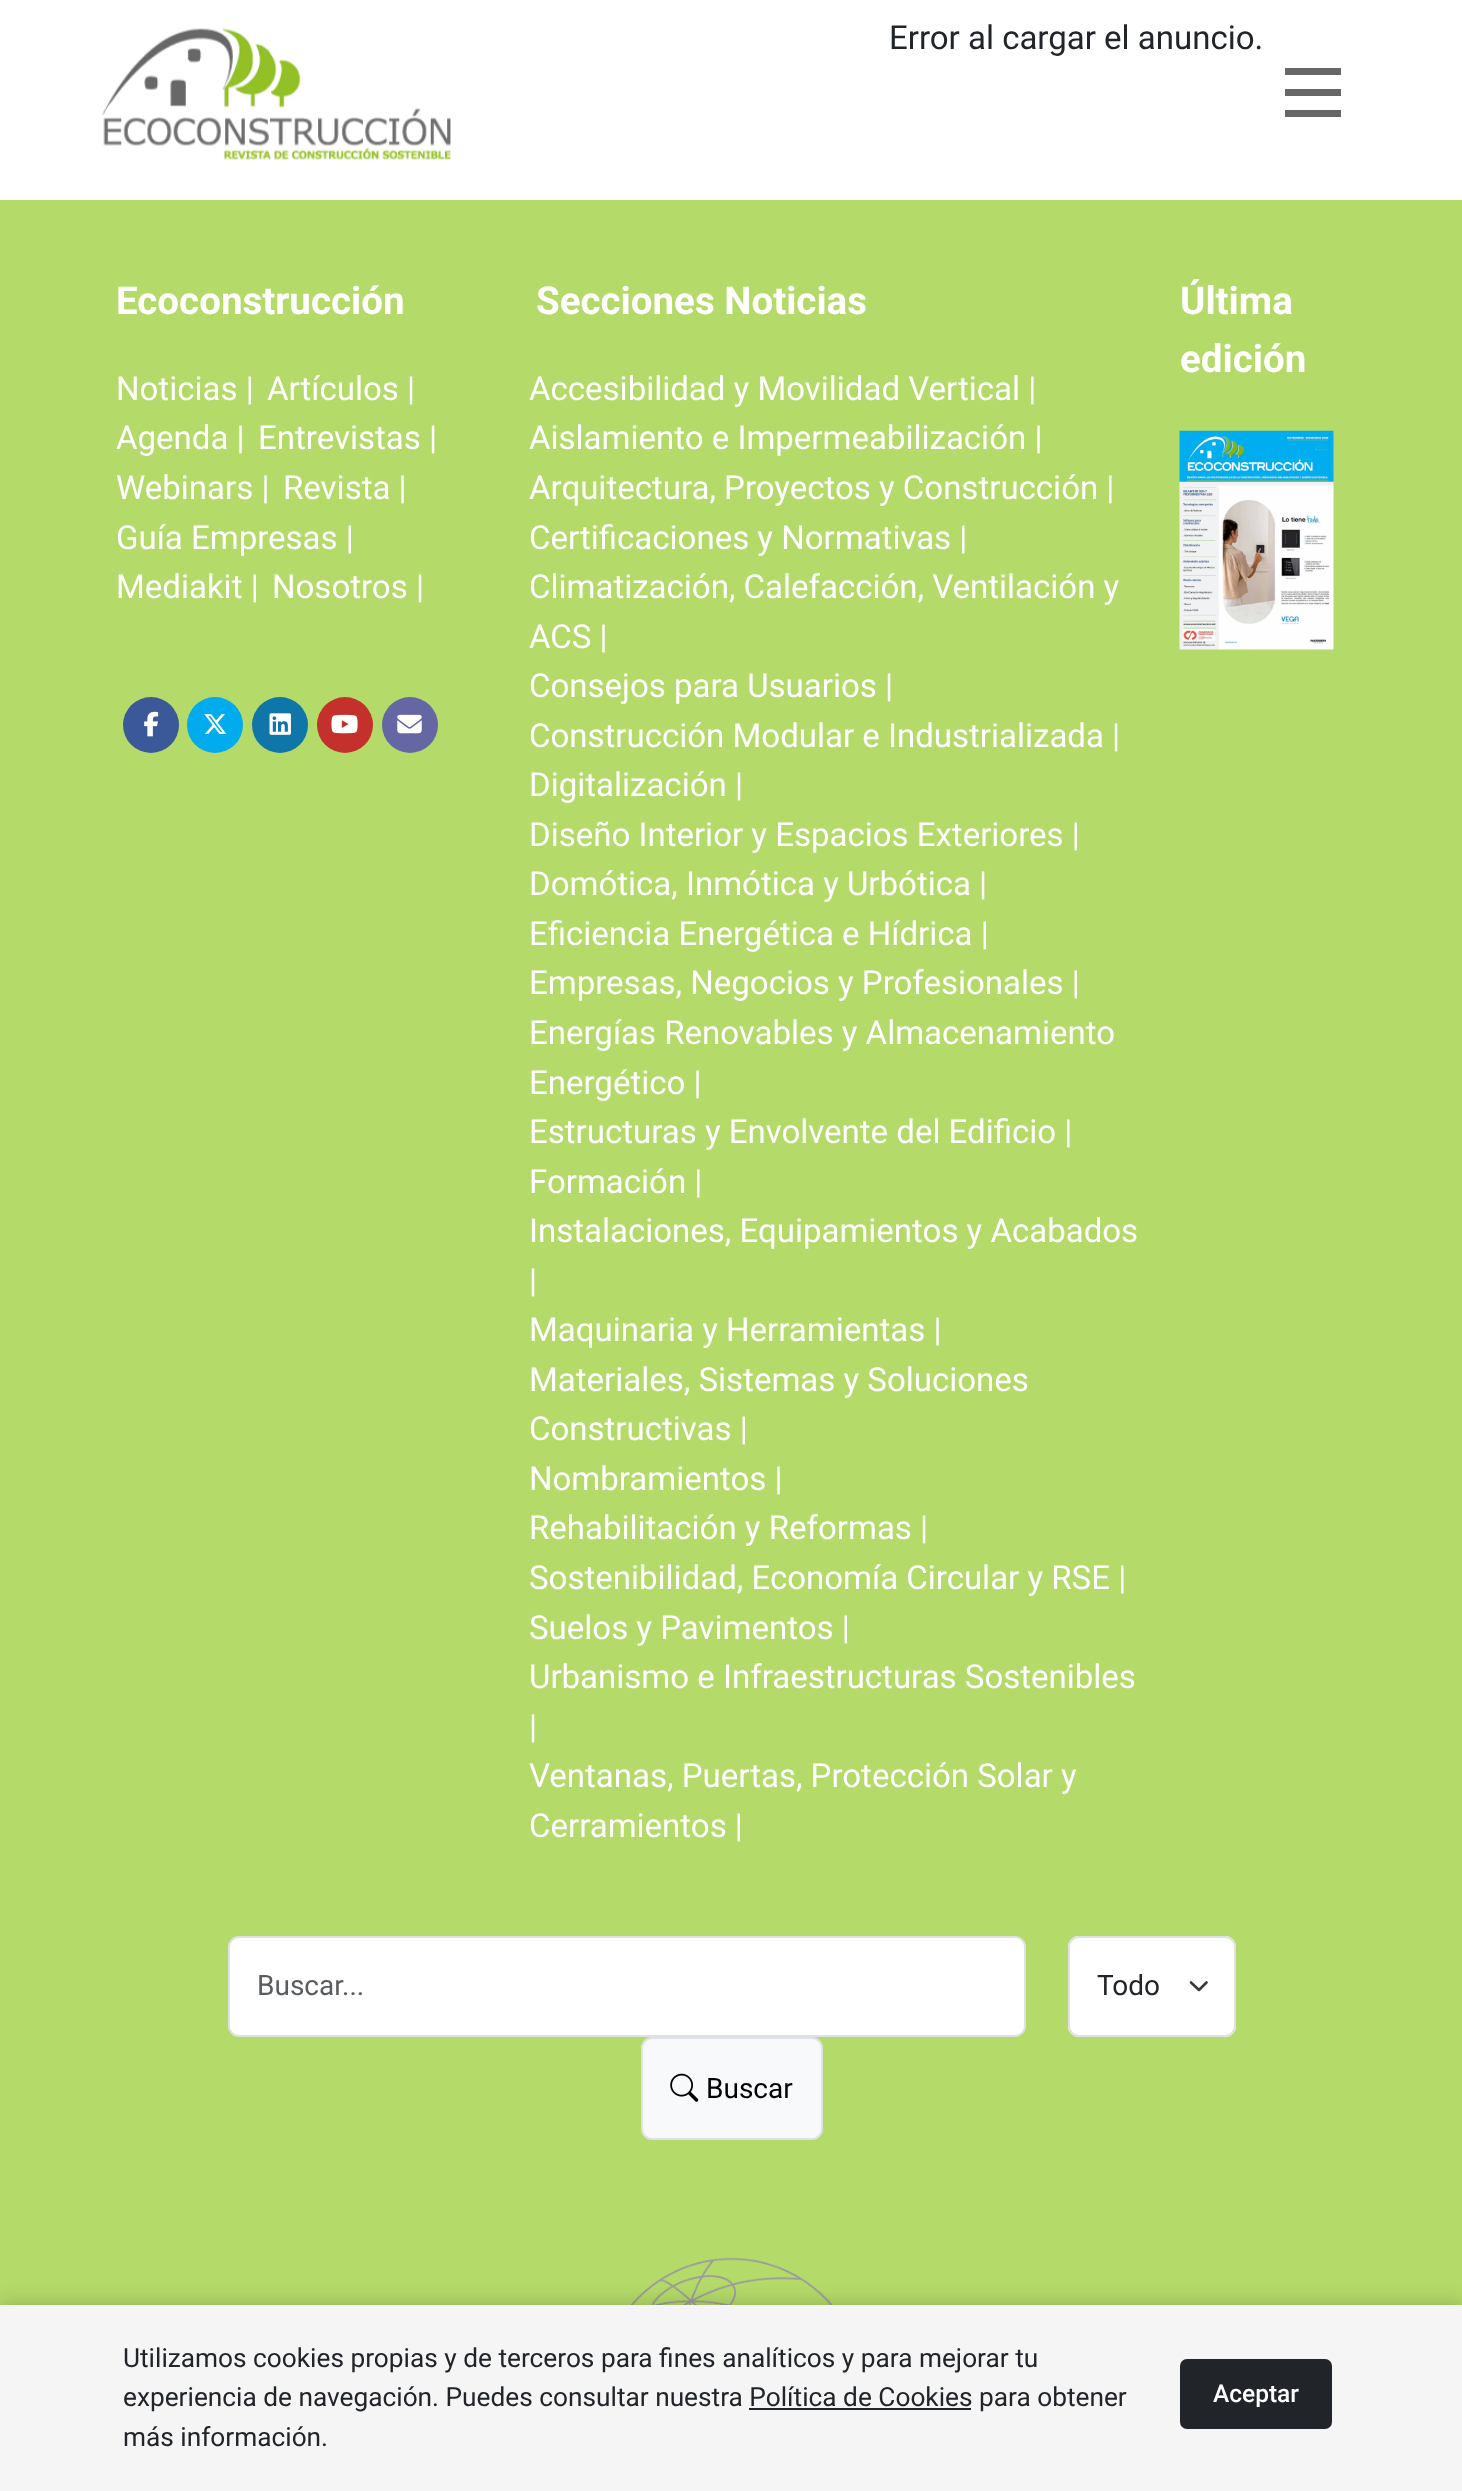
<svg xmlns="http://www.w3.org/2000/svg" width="1462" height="2491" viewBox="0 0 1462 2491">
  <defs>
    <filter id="blur1" x="-50%" y="-200%" width="200%" height="500%"><feGaussianBlur stdDeviation="9"/></filter>
  </defs>
  <rect width="100%" height="100%" fill="#b4da69"/>
  <rect x="0" y="0" width="1462" height="200" fill="#ffffff"/>
  <image x="102" y="28" width="349" height="132" href="img1.png"/>
  <text x="889" y="49" font-family="Roboto" font-size="33" fill="#212529">Error al cargar el anuncio.</text>
  <rect x="1285" y="89" width="56" height="7" fill="#676767"/>
  <rect x="1285" y="68" width="56" height="7" fill="#676767"/>
  <rect x="1285" y="110" width="56" height="7" fill="#676767"/>
  <text x="116" y="314" font-family="Roboto" font-size="38.5" font-weight="bold" fill="#ffffff">Ecoconstrucción</text>
  <text x="116" y="400" font-family="Roboto" font-size="33" fill="#ffffff">Noticias |</text>
  <text x="267" y="400" font-family="Roboto" font-size="33" fill="#ffffff">Artículos |</text>
  <text x="116" y="449" font-family="Roboto" font-size="33" fill="#ffffff">Agenda |</text>
  <text x="258" y="449" font-family="Roboto" font-size="33" fill="#ffffff">Entrevistas |</text>
  <text x="116" y="499" font-family="Roboto" font-size="33" fill="#ffffff">Webinars |</text>
  <text x="283" y="499" font-family="Roboto" font-size="33" fill="#ffffff">Revista |</text>
  <text x="116" y="549" font-family="Roboto" font-size="33" fill="#ffffff">Guía Empresas |</text>
  <text x="116" y="598" font-family="Roboto" font-size="33" fill="#ffffff">Mediakit |</text>
  <text x="272" y="598" font-family="Roboto" font-size="33" fill="#ffffff">Nosotros |</text>
  <circle cx="151" cy="725" r="28" fill="#3b5998"/>
  <image x="144" y="711" width="15" height="26" href="img2.png"/>
  <circle cx="215" cy="725" r="28" fill="#00acee"/>
  <image x="204" y="714" width="23" height="20" href="img3.png"/>
  <circle cx="280" cy="725" r="28" fill="#0e76a8"/>
  <image x="269" y="713" width="22" height="22" href="img4.png"/>
  <circle cx="345" cy="725" r="28" fill="#c4302b"/>
  <image x="331" y="714" width="27" height="20" href="img5.png"/>
  <circle cx="410" cy="725" r="28" fill="#6567a5"/>
  <image x="397" y="714" width="25" height="20" href="img6.png"/>
  <text x="536" y="314" font-family="Roboto" font-size="38.5" font-weight="bold" fill="#ffffff">Secciones Noticias</text>
  <text x="529" y="400" font-family="Roboto" font-size="33" fill="#ffffff">Accesibilidad y Movilidad Vertical |</text>
  <text x="529" y="449" font-family="Roboto" font-size="33" fill="#ffffff">Aislamiento e Impermeabilización |</text>
  <text x="529" y="499" font-family="Roboto" font-size="33" fill="#ffffff">Arquitectura, Proyectos y Construcción |</text>
  <text x="529" y="549" font-family="Roboto" font-size="33" fill="#ffffff">Certificaciones y Normativas |</text>
  <text x="529" y="598" font-family="Roboto" font-size="33" fill="#ffffff">Climatización, Calefacción, Ventilación y</text>
  <text x="529" y="648" font-family="Roboto" font-size="33" fill="#ffffff">ACS |</text>
  <text x="529" y="697" font-family="Roboto" font-size="33" fill="#ffffff">Consejos para Usuarios |</text>
  <text x="529" y="747" font-family="Roboto" font-size="33" fill="#ffffff">Construcción Modular e Industrializada |</text>
  <text x="529" y="796" font-family="Roboto" font-size="33" fill="#ffffff">Digitalización |</text>
  <text x="529" y="846" font-family="Roboto" font-size="33" fill="#ffffff">Diseño Interior y Espacios Exteriores |</text>
  <text x="529" y="895" font-family="Roboto" font-size="33" fill="#ffffff">Domótica, Inmótica y Urbótica |</text>
  <text x="529" y="945" font-family="Roboto" font-size="33" fill="#ffffff">Eficiencia Energética e Hídrica |</text>
  <text x="529" y="994" font-family="Roboto" font-size="33" fill="#ffffff">Empresas, Negocios y Profesionales |</text>
  <text x="529" y="1044" font-family="Roboto" font-size="33" fill="#ffffff">Energías Renovables y Almacenamiento</text>
  <text x="529" y="1094" font-family="Roboto" font-size="33" fill="#ffffff">Energético |</text>
  <text x="529" y="1143" font-family="Roboto" font-size="33" fill="#ffffff">Estructuras y Envolvente del Edificio |</text>
  <text x="529" y="1193" font-family="Roboto" font-size="33" fill="#ffffff">Formación |</text>
  <text x="529" y="1242" font-family="Roboto" font-size="33" fill="#ffffff">Instalaciones, Equipamientos y Acabados</text>
  <text x="529" y="1292" font-family="Roboto" font-size="33" fill="#ffffff">|</text>
  <text x="529" y="1341" font-family="Roboto" font-size="33" fill="#ffffff">Maquinaria y Herramientas |</text>
  <text x="529" y="1391" font-family="Roboto" font-size="33" fill="#ffffff">Materiales, Sistemas y Soluciones</text>
  <text x="529" y="1440" font-family="Roboto" font-size="33" fill="#ffffff">Constructivas |</text>
  <text x="529" y="1490" font-family="Roboto" font-size="33" fill="#ffffff">Nombramientos |</text>
  <text x="529" y="1539" font-family="Roboto" font-size="33" fill="#ffffff">Rehabilitación y Reformas |</text>
  <text x="529" y="1589" font-family="Roboto" font-size="33" fill="#ffffff">Sostenibilidad, Economía Circular y RSE |</text>
  <text x="529" y="1639" font-family="Roboto" font-size="33" fill="#ffffff">Suelos y Pavimentos |</text>
  <text x="529" y="1688" font-family="Roboto" font-size="33" fill="#ffffff">Urbanismo e Infraestructuras Sostenibles</text>
  <text x="529" y="1738" font-family="Roboto" font-size="33" fill="#ffffff">|</text>
  <text x="529" y="1787" font-family="Roboto" font-size="33" fill="#ffffff">Ventanas, Puertas, Protección Solar y</text>
  <text x="529" y="1837" font-family="Roboto" font-size="33" fill="#ffffff">Cerramientos |</text>
  <text x="1180" y="314" font-family="Roboto" font-size="38.5" font-weight="bold" fill="#ffffff">Última</text>
  <text x="1180" y="372" font-family="Roboto" font-size="38.5" font-weight="bold" fill="#ffffff">edición</text>
  <image x="1179" y="430" width="155" height="220" href="img7.png"/>
  <rect x="229" y="1937" width="796" height="99" rx="10" fill="#ffffff" stroke="#dee2e6" stroke-width="2"/>
  <text x="257" y="1995" font-family="Roboto" font-size="28" fill="#595c5f">Buscar...</text>
  <rect x="1068" y="1936" width="168" height="101" rx="11" fill="#ffffff"/>
  <path d="M1191 1982.5L1199 1990L1206.5 1982.5" fill="none" stroke="#343a40" stroke-width="2.6" stroke-linecap="round" stroke-linejoin="round"/>
  <rect x="1069" y="1937" width="166" height="99" rx="10" fill="none" stroke="#dee2e6" stroke-width="2"/>
  <text x="1097" y="1995" font-family="Roboto" font-size="28" fill="#212529">Todo</text>
  <rect x="642" y="2038" width="180" height="101" rx="10" fill="#f8f9fa" stroke="#dee2e6" stroke-width="2"/>
  <image x="670" y="2073" width="29" height="29" href="img8.png"/>
  <text x="706" y="2098" font-family="Roboto" font-size="28" fill="#000000">Buscar</text>
  <image x="630" y="2257" width="203" height="48" href="img9.png"/>
  <rect x="0" y="2301" width="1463" height="188" fill="#000000" fill-opacity="0.15" filter="url(#blur1)"/>
  <rect x="0" y="2305" width="1462" height="186" fill="#f5f5f5"/>
  <text x="123" y="2367" font-family="Roboto" font-size="26.25" fill="#212529">Utilizamos cookies propias y de terceros para fines analíticos y para mejorar tu</text>
  <text x="123" y="2406" font-family="Roboto" font-size="26.25" fill="#212529">experiencia de navegación. Puedes consultar nuestra Política de Cookies para obtener</text>
  <rect x="749" y="2408" width="222" height="2" fill="#212529"/>
  <text x="123" y="2446" font-family="Roboto" font-size="26.25" fill="#212529">más información.</text>
  <rect x="1180" y="2359" width="152" height="70" rx="7" fill="#212529"/>
  <text x="1213" y="2402" font-family="Roboto" font-size="24.5" font-weight="500" fill="#ffffff">Aceptar</text>
</svg>
